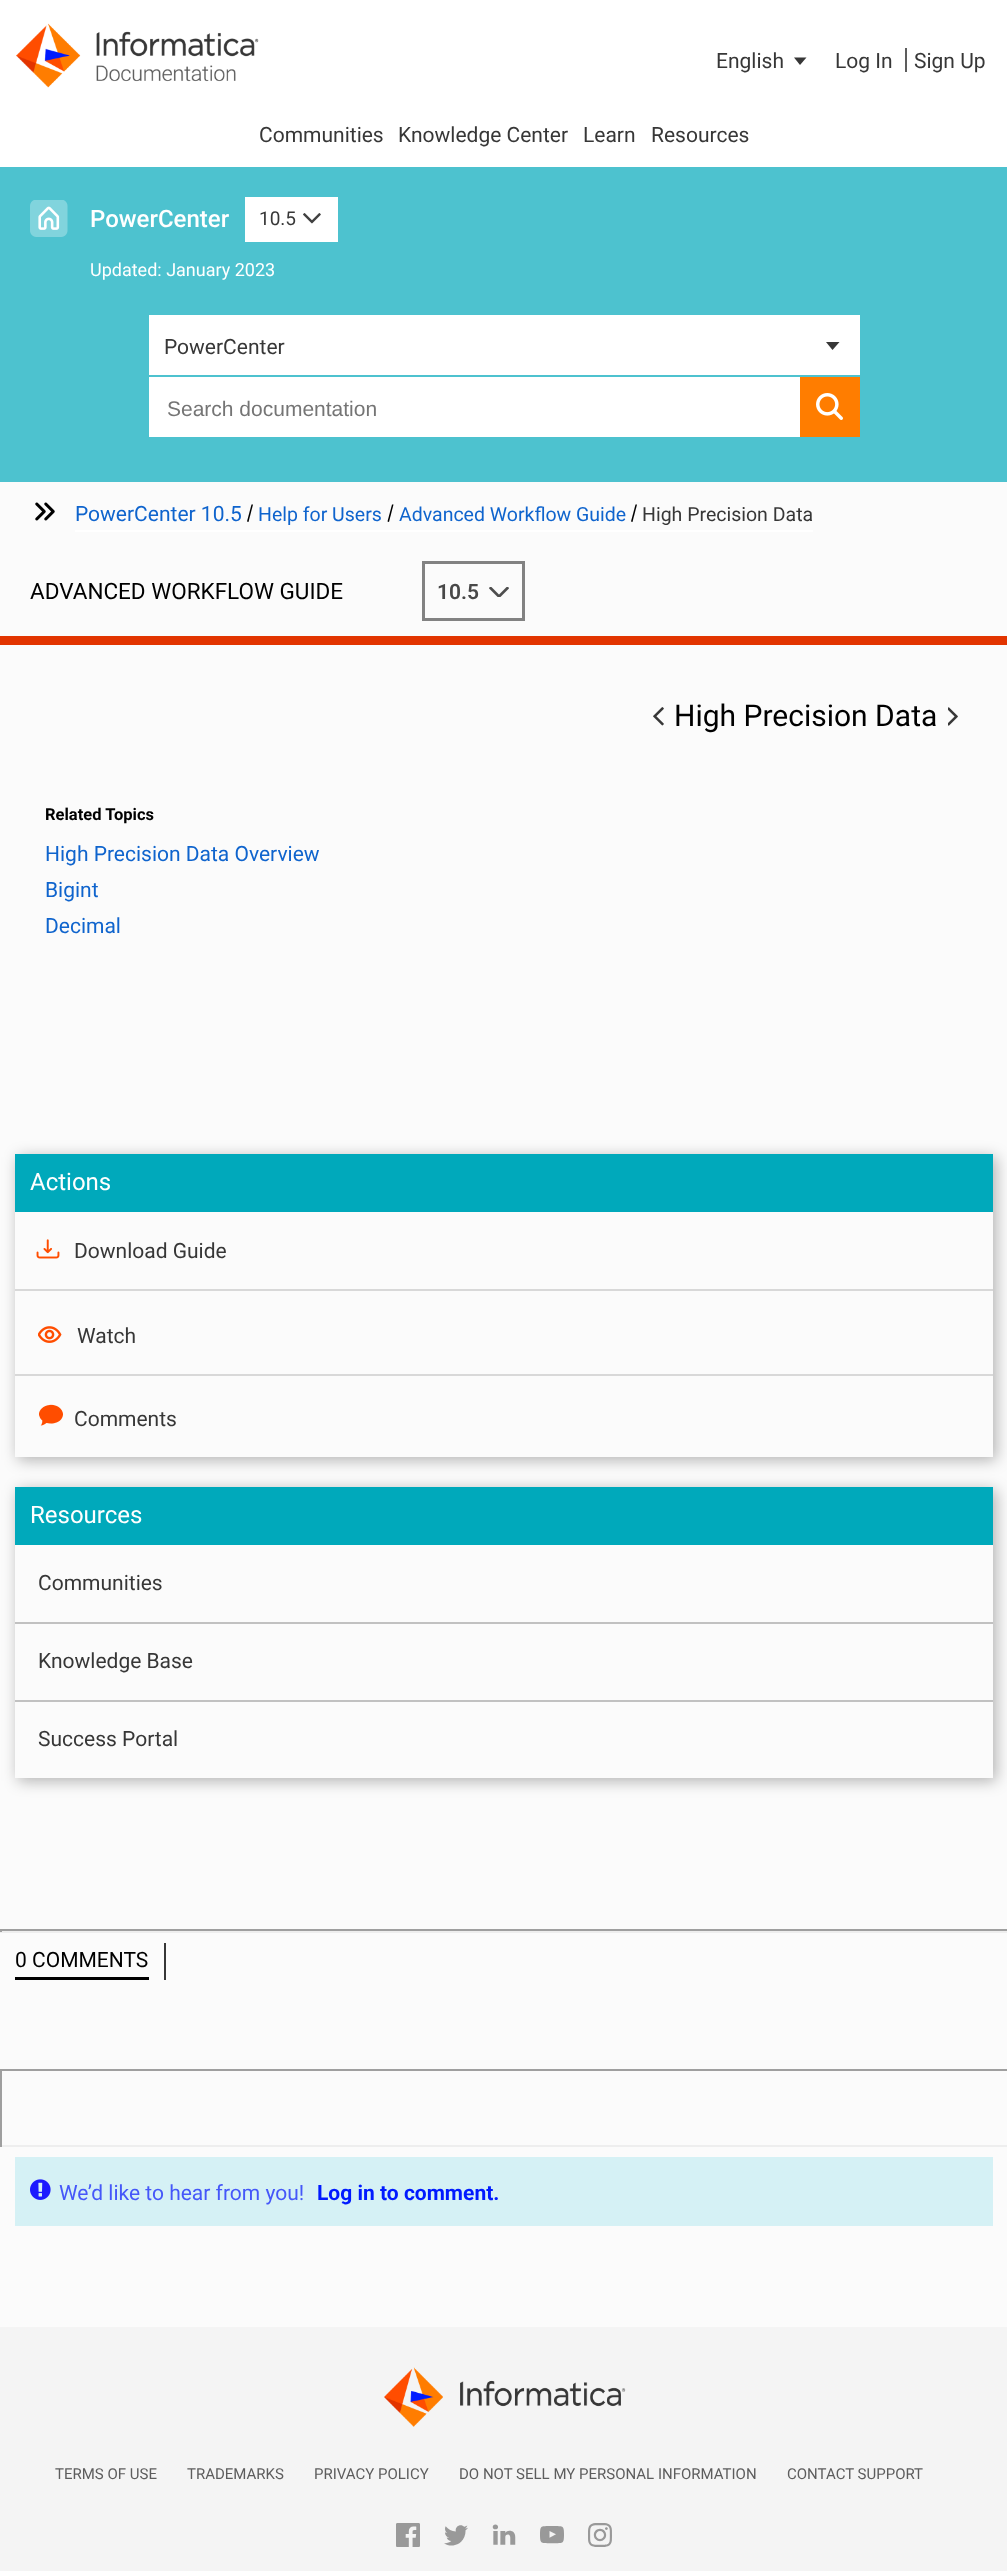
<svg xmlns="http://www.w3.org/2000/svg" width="1007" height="2571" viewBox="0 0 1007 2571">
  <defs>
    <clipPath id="clip1"><path d="M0 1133H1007V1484H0ZM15 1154H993V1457H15Z" clip-rule="evenodd"/></clipPath>
    <filter id="blur1" x="-50%" y="-200%" width="200%" height="500%"><feGaussianBlur stdDeviation="7.5"/></filter>
    <clipPath id="clip2"><path d="M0 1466H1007V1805H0ZM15 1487H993V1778H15Z" clip-rule="evenodd"/></clipPath>
  </defs>
  <rect width="100%" height="100%" fill="#ffffff"/>
  <image x="16" y="23" width="243" height="65" href="img1.png"/>
  <text x="716" y="68" font-family="Roboto" font-size="21" fill="#373737">English</text>
  <path d="M806.5 57.5L800 65L794 57.5Z" fill="#373737"/>
  <text x="835" y="68" font-family="Roboto" font-size="21" fill="#373737">Log In</text>
  <rect x="905" y="48" width="2" height="24" fill="#5d5d5d"/>
  <text x="914" y="68" font-family="Roboto" font-size="21" fill="#373737">Sign Up</text>
  <text x="259" y="142" font-family="Roboto" font-size="21" fill="#373737">Communities</text>
  <text x="398" y="142" font-family="Roboto" font-size="21" fill="#373737">Knowledge Center</text>
  <text x="583" y="142" font-family="Roboto" font-size="21" fill="#373737">Learn</text>
  <text x="651" y="142" font-family="Roboto" font-size="21" fill="#373737">Resources</text>
  <rect x="0" y="167" width="1007" height="315" fill="#4dc2cf"/>
  <image x="30" y="200" width="38" height="37" href="img2.png"/>
  <text x="90" y="227" font-family="Roboto" font-size="24" font-weight="500" fill="#ffffff">PowerCenter</text>
  <rect x="245" y="197" width="93" height="45" fill="#ffffff"/>
  <text x="259" y="225" font-family="Roboto" font-size="19" fill="#373737">10.5</text>
  <image x="303" y="213" width="18" height="11" href="img3.png"/>
  <text x="90" y="276" font-family="Roboto" font-size="18" fill="#ffffff">Updated: January 2023</text>
  <rect x="149" y="315" width="711" height="60" fill="#ffffff"/>
  <text x="164" y="354" font-family="Roboto" font-size="21" fill="#373737">PowerCenter</text>
  <path d="M839.5 342L832.5 350L826 342Z" fill="#373737"/>
  <rect x="149" y="377" width="651" height="60" fill="#ffffff"/>
  <text x="167" y="416" font-family="Liberation Sans" font-size="21" fill="#757575">Search documentation</text>
  <rect x="800" y="377" width="60" height="60" fill="#ff7d00"/>
  <image x="816" y="393" width="27" height="27" href="img4.png"/>
  <rect x="0" y="482" width="1007" height="1845" fill="#fbfbfb"/>
  <image x="35" y="502" width="20" height="19" href="img5.png"/>
  <rect x="75" y="530" width="738" height="2" fill="#ffffff"/>
  <text x="75" y="521" font-family="Roboto" font-size="21" fill="#0f64cd">PowerCenter 10.5</text>
  <path d="M251.5 504.5H253L248.5 522L247 521.5Z" fill="#000000"/>
  <text x="258" y="521" font-family="Roboto" font-size="19.5" fill="#0f64cd">Help for Users</text>
  <path d="M392 504.5H393.5L389 522L387.5 521.5Z" fill="#000000"/>
  <text x="399" y="521" font-family="Roboto" font-size="19.5" fill="#0f64cd">Advanced Workflow Guide</text>
  <path d="M635.5 504.5H637L632.5 522L631 521.5Z" fill="#000000"/>
  <text x="642" y="521" font-family="Roboto" font-size="19.5" fill="#373737">High Precision Data</text>
  <text x="30" y="599" font-family="Roboto" font-size="22.5" fill="#000000">ADVANCED WORKFLOW GUIDE</text>
  <rect x="423.5" y="562.5" width="100" height="57" fill="none" stroke="#828282" stroke-width="3"/>
  <text x="437" y="599" font-family="Roboto" font-size="21" font-weight="600" fill="#484848">10.5</text>
  <image x="489" y="587" width="20" height="10" href="img6.png"/>
  <rect x="0" y="636" width="1007" height="9" fill="#e23400"/>
  <image x="653" y="707" width="11" height="19" href="img7.png"/>
  <text x="674" y="726" font-family="Roboto" font-size="30" fill="#000000">High Precision Data</text>
  <image x="948" y="707" width="10" height="19" href="img8.png"/>
  <text x="45" y="820" font-family="Roboto" font-size="16.5" font-weight="bold" fill="#000000">Related Topics</text>
  <text x="45" y="861" font-family="Roboto" font-size="21" fill="#0f64cd">High Precision Data Overview</text>
  <text x="45" y="897" font-family="Roboto" font-size="21" fill="#0f64cd">Bigint</text>
  <text x="45" y="933" font-family="Roboto" font-size="21" fill="#0f64cd">Decimal</text>
  <g clip-path="url(#clip1)">
    <rect x="18" y="1157" width="978" height="303" fill="#000000" fill-opacity="0.3" filter="url(#blur1)"/>
  </g>
  <rect x="15" y="1154" width="978" height="58" fill="#00a9bb"/>
  <text x="30" y="1190" font-family="Roboto" font-size="24" fill="#ffffff">Actions</text>
  <rect x="15" y="1289" width="978" height="2" fill="#d8d8d8"/>
  <image x="36" y="1239" width="24" height="20" href="img9.png"/>
  <text x="74" y="1258" font-family="Roboto" font-size="21" fill="#373737">Download Guide</text>
  <rect x="15" y="1374" width="978" height="2" fill="#d8d8d8"/>
  <image x="38" y="1326" width="24" height="17" href="img10.png"/>
  <text x="77" y="1343" font-family="Roboto" font-size="21" fill="#373737">Watch</text>
  <image x="39" y="1404" width="24" height="22" href="img11.png"/>
  <text x="74" y="1426" font-family="Roboto" font-size="21" fill="#373737">Comments</text>
  <g clip-path="url(#clip2)">
    <rect x="18" y="1490" width="978" height="291" fill="#000000" fill-opacity="0.3" filter="url(#blur1)"/>
  </g>
  <rect x="15" y="1487" width="978" height="58" fill="#00a9bb"/>
  <text x="30" y="1523" font-family="Roboto" font-size="24" fill="#ffffff">Resources</text>
  <rect x="15" y="1622" width="978" height="2" fill="#c1c1c1"/>
  <text x="38" y="1590" font-family="Roboto" font-size="21" fill="#373737">Communities</text>
  <rect x="15" y="1700" width="978" height="2" fill="#c1c1c1"/>
  <text x="38" y="1668" font-family="Roboto" font-size="21" fill="#373737">Knowledge Base</text>
  <text x="38" y="1746" font-family="Roboto" font-size="21" fill="#373737">Success Portal</text>
  <rect x="0" y="1929" width="1007" height="2" fill="#9f9f9f"/>
  <rect x="0" y="1931" width="1007" height="2" fill="#eeeeee"/>
  <rect x="0" y="1929" width="2" height="3" fill="#9f9f9f"/>
  <rect x="15" y="1977" width="134" height="3" fill="#000000"/>
  <text x="15" y="1967" font-family="Roboto" font-size="21" fill="#000000">0 COMMENTS</text>
  <rect x="164" y="1943" width="2" height="37" fill="#373737"/>
  <rect x="0" y="2069" width="1007" height="2" fill="#9f9f9f"/>
  <rect x="0" y="2145" width="1007" height="2" fill="#eeeeee"/>
  <rect x="0" y="2069" width="2" height="78" fill="#9f9f9f"/>
  <rect x="15" y="2157" width="978" height="69" fill="#d5f1f5"/>
  <image x="30" y="2179" width="21" height="21" href="img12.png"/>
  <text x="59" y="2200" font-family="Roboto" font-size="21" fill="#4557f9">We’d like to hear from you!</text>
  <text x="317" y="2200" font-family="Roboto" font-size="21" font-weight="bold" fill="#001aff">Log in to comment.</text>
  <rect x="0" y="2327" width="1007" height="244" fill="#f4f4f4"/>
  <image x="384" y="2367" width="242" height="60" href="img13.png"/>
  <text x="55" y="2479" font-family="Roboto" font-size="15" fill="#5d5d5d">TERMS OF USE</text>
  <text x="187" y="2479" font-family="Roboto" font-size="15" fill="#5d5d5d">TRADEMARKS</text>
  <text x="314" y="2479" font-family="Roboto" font-size="15" fill="#5d5d5d">PRIVACY POLICY</text>
  <text x="459" y="2479" font-family="Roboto" font-size="15" fill="#5d5d5d">DO NOT SELL MY PERSONAL INFORMATION</text>
  <text x="787" y="2479" font-family="Roboto" font-size="15" fill="#5d5d5d">CONTACT SUPPORT</text>
  <image x="396" y="2523" width="24" height="24" href="img14.png"/>
  <image x="444" y="2525" width="24" height="21" href="img15.png"/>
  <image x="492" y="2524" width="24" height="21" href="img16.png"/>
  <image x="540" y="2526" width="24" height="18" href="img17.png"/>
  <image x="588" y="2523" width="24" height="24" href="img18.png"/>
</svg>
